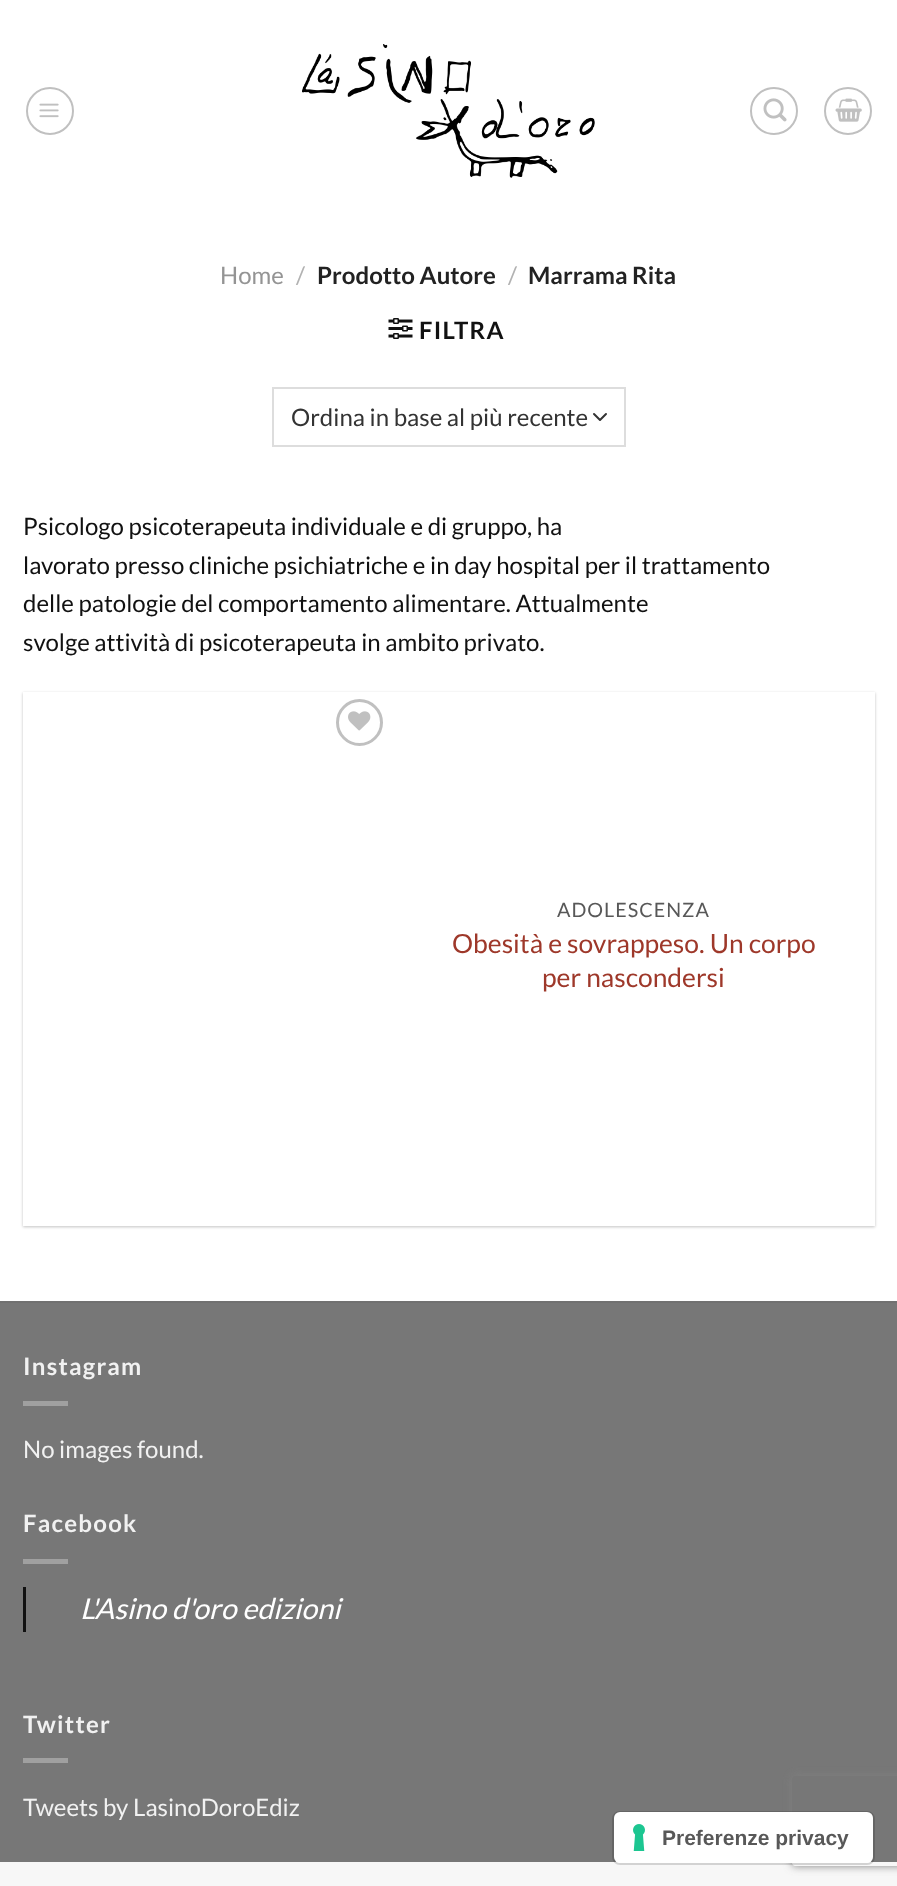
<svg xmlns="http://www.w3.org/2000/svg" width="897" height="1886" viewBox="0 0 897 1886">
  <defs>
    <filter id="blur1" x="-50%" y="-200%" width="200%" height="500%"><feGaussianBlur stdDeviation="1.5"/></filter>
    <clipPath id="clip1"><path d="M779 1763H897V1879H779ZM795 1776H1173C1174.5 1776 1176 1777.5 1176 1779V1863C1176 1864.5 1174.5 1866 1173 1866H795C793.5 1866 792 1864.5 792 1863V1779C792 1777.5 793.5 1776 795 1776Z" clip-rule="evenodd"/></clipPath>
    <filter id="blur2" x="-50%" y="-200%" width="200%" height="500%"><feGaussianBlur stdDeviation="4"/></filter>
  </defs>
  <rect width="100%" height="100%" fill="#ffffff"/>
  <circle cx="50" cy="111" r="23" fill="none" stroke="#c0c0c0" stroke-width="2"/>
  <image x="39" y="103" width="20" height="15" href="img1.png"/>
  <image x="302" y="44" width="293" height="134" href="img2.png"/>
  <circle cx="774" cy="111" r="23" fill="none" stroke="#c0c0c0" stroke-width="2"/>
  <image x="763" y="98" width="24" height="24" href="img3.png"/>
  <circle cx="848" cy="111" r="23" fill="none" stroke="#c0c0c0" stroke-width="2"/>
  <image x="835" y="98" width="27" height="24" href="img4.png"/>
  <text x="220" y="284" font-family="Lato" font-size="24" fill="#949494">Home</text>
  <text x="296" y="284" font-family="Lato" font-size="24" fill="#b2b2b2">/</text>
  <text x="317" y="284" font-family="Lato" font-size="24" font-weight="bold" fill="#222222">Prodotto Autore</text>
  <text x="508" y="284" font-family="Lato" font-size="24" fill="#b2b2b2">/</text>
  <text x="528" y="284" font-family="Lato" font-size="24" font-weight="bold" fill="#222222">Marrama Rita</text>
  <image x="388" y="318" width="25" height="21" href="img5.png"/>
  <text x="419" y="339" font-family="Lato" font-size="24" font-weight="bold" letter-spacing="1.25" fill="#111111">FILTRA</text>
  <path d="M594 414L600 420L606 414" fill="none" stroke="#333333" stroke-width="2" stroke-linecap="round" stroke-linejoin="round"/>
  <rect x="273" y="388" width="352" height="58" fill="none" stroke="#dddddd" stroke-width="2"/>
  <text x="291" y="426" font-family="Lato" font-size="24" fill="#333333">Ordina in base al più recente</text>
  <text x="23" y="535" font-family="Lato" font-size="24" fill="#111111">Psicologo psicoterapeuta individuale e di gruppo, ha</text>
  <text x="23" y="574" font-family="Lato" font-size="24" fill="#111111">lavorato presso cliniche psichiatriche e in day hospital per il trattamento</text>
  <text x="23" y="612" font-family="Lato" font-size="24" fill="#111111">delle patologie del comportamento alimentare. Attualmente</text>
  <text x="23" y="651" font-family="Lato" font-size="24" fill="#111111">svolge attività di psicoterapeuta in ambito privato.</text>
  <rect x="23" y="693" width="852" height="534" fill="#000000" fill-opacity="0.24" filter="url(#blur1)"/>
  <rect x="23" y="692" width="852" height="534" fill="#ffffff"/>
  <circle cx="359.5" cy="722.5" r="22" fill="none" stroke="#c0c0c0" stroke-width="3"/>
  <image x="348" y="711" width="23" height="20" href="img6.png"/>
  <text x="557" y="917" font-family="Lato" font-size="19.75" letter-spacing="1" fill="#585858">ADOLESCENZA</text>
  <text x="452" y="953" font-family="Lato" font-size="26.4" fill="#9e382a">Obesità e sovrappeso. Un corpo</text>
  <text x="542" y="987" font-family="Lato" font-size="26.4" fill="#9e382a">per nascondersi</text>
  <rect x="0" y="1303" width="897" height="559" fill="#777777"/>
  <rect x="0" y="1301" width="897" height="2" fill="#717171"/>
  <text x="23" y="1375" font-family="Lato" font-size="24" font-weight="bold" letter-spacing="1.25" fill="#f1f1f1">Instagram</text>
  <rect x="23" y="1401" width="45" height="5" fill="#a0a0a0"/>
  <text x="23" y="1458" font-family="Lato" font-size="24" fill="#f1f1f1">No images found.</text>
  <text x="23" y="1532" font-family="Lato" font-size="24" font-weight="bold" letter-spacing="1.25" fill="#f1f1f1">Facebook</text>
  <rect x="23" y="1559" width="45" height="5" fill="#a0a0a0"/>
  <rect x="23" y="1587" width="3" height="45" fill="#111111"/>
  <text x="80" y="1619" font-family="Lato" font-size="28.75" font-style="italic" fill="#ffffff">L'Asino d'oro edizioni</text>
  <text x="23" y="1733" font-family="Lato" font-size="24" font-weight="bold" letter-spacing="1.25" fill="#f1f1f1">Twitter</text>
  <rect x="23" y="1758" width="45" height="5" fill="#a0a0a0"/>
  <text x="23" y="1816" font-family="Lato" font-size="24" fill="#f1f1f1">Tweets by LasinoDoroEdiz</text>
  <rect x="0" y="1862" width="897" height="24" fill="#f7f7f7"/>
  <g clip-path="url(#clip1)">
    <rect x="792" y="1776" width="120" height="90" rx="3" fill="#808080" filter="url(#blur2)"/>
  </g>
  <rect x="613" y="1812" width="261" height="52" rx="7" fill="none" stroke="#000000" stroke-opacity="0.15" stroke-width="2"/>
  <rect x="614" y="1812" width="259" height="51" rx="6" fill="#ffffff"/>
  <image x="633" y="1824" width="12" height="27" href="img7.png"/>
  <text x="662" y="1845" font-family="Liberation Sans" font-size="21" font-weight="bold" fill="#585858">Preferenze privacy</text>
</svg>
